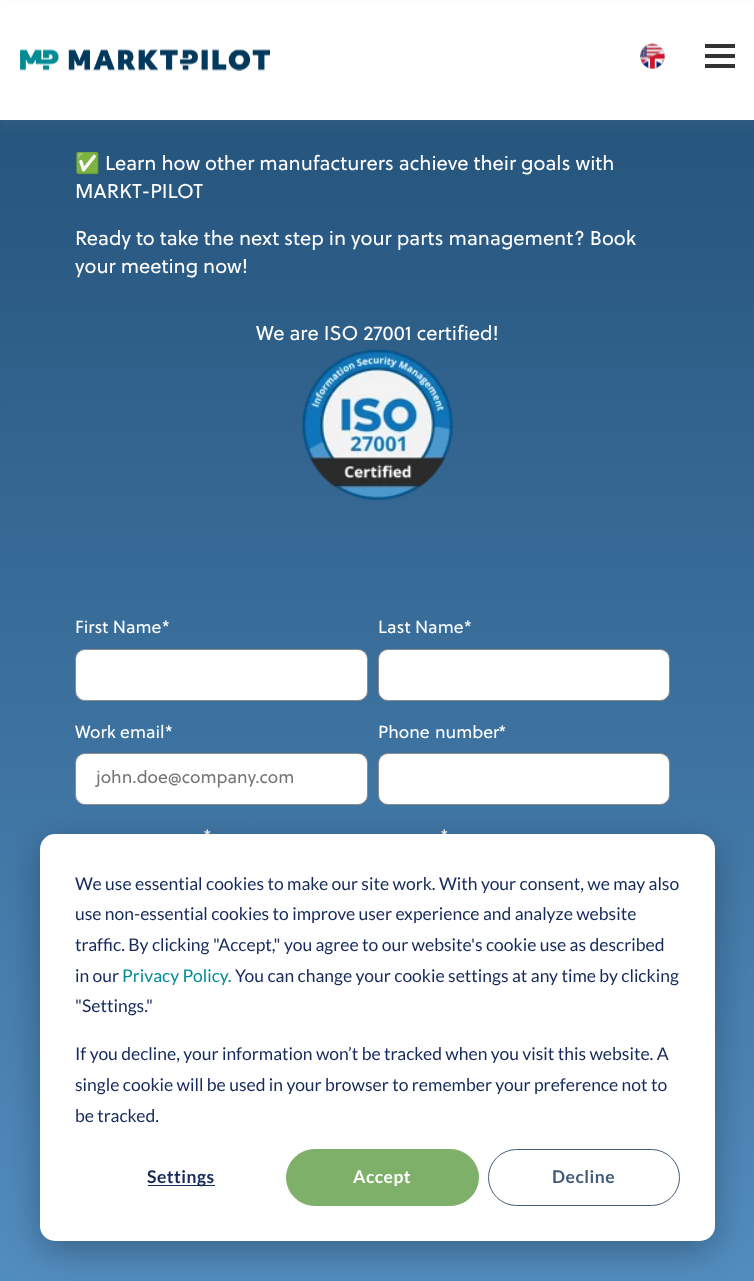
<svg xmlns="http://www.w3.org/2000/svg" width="754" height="1281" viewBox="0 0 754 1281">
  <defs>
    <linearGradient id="g1" gradientUnits="userSpaceOnUse" x1="377" y1="-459" x2="378" y2="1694"><stop offset="0" stop-color="#10395c"/><stop offset="1" stop-color="#61a0d6"/></linearGradient>
    <filter id="blur1" x="-50%" y="-200%" width="200%" height="500%"><feGaussianBlur stdDeviation="6"/></filter>
    <filter id="blur2" x="-50%" y="-200%" width="200%" height="500%"><feGaussianBlur stdDeviation="17.5"/></filter>
  </defs>
  <rect width="100%" height="100%" fill="#ffffff"/>
  <rect x="0" y="120" width="754" height="1161" fill="url(#g1)"/>
  <rect x="0" y="6" width="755" height="120" fill="#9aa1b1" fill-opacity="0.1" filter="url(#blur1)"/>
  <rect x="0" y="2" width="754" height="118" fill="#ffffff"/>
  <image x="20" y="49" width="250" height="22" href="img1.png"/>
  <image x="640" y="43" width="25" height="27" href="img2.png"/>
  <rect x="705" y="54" width="30" height="4" fill="#323232"/>
  <rect x="705" y="44" width="30" height="4" fill="#323232"/>
  <rect x="705" y="64" width="30" height="4" fill="#323232"/>
  <text x="75" y="170" font-family="Noto Color Emoji" font-size="20" fill="#ffffff">✅</text>
  <text x="105" y="170" font-family="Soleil" font-size="20" fill="#ffffff">Learn how other manufacturers achieve their goals with</text>
  <text x="75" y="198" font-family="Soleil" font-size="20" fill="#ffffff">MARKT-PILOT</text>
  <text x="75" y="245" font-family="Soleil" font-size="20" fill="#ffffff">Ready to take the next step in your parts management? Book</text>
  <text x="75" y="273" font-family="Soleil" font-size="20" fill="#ffffff">your meeting now!</text>
  <text x="256" y="340" font-family="Soleil" font-size="20" fill="#ffffff">We are ISO 27001 certified!</text>
  <image x="302" y="349" width="151" height="151" href="img3.png"/>
  <text x="75" y="633" font-family="Soleil" font-size="17.5" fill="#ffffff">First Name*</text>
  <rect x="75.5" y="649.5" width="292" height="51" rx="9.5" fill="#ffffff" stroke="#8c8c8c"/>
  <text x="378" y="633" font-family="Soleil" font-size="17.5" fill="#ffffff">Last Name*</text>
  <rect x="378.5" y="649.5" width="291" height="51" rx="9.5" fill="#ffffff" stroke="#8c8c8c"/>
  <text x="75" y="738" font-family="Soleil" font-size="17.5" fill="#ffffff">Work email*</text>
  <rect x="75.5" y="753.5" width="292" height="51" rx="9.5" fill="#ffffff" stroke="#8c8c8c"/>
  <text x="96" y="783" font-family="Soleil" font-size="17.5" fill="#757575">john.doe@company.com</text>
  <text x="378" y="738" word-spacing="1" font-family="Soleil" font-size="17.5" fill="#ffffff">Phone number</text>
  <text x="498" y="738" font-family="Soleil" font-size="17.5" fill="#ffffff">*</text>
  <rect x="378.5" y="753.5" width="291" height="51" rx="9.5" fill="#ffffff" stroke="#8c8c8c"/>
  <text x="203" y="842" font-family="Soleil" font-size="17.5" fill="#ffffff">*</text>
  <text x="440" y="842" font-family="Soleil" font-size="17.5" fill="#ffffff">*</text>
  <rect x="40" y="844" width="675" height="407" rx="15" fill="#000000" fill-opacity="0.28" filter="url(#blur2)"/>
  <rect x="40" y="834" width="675" height="407" rx="15" fill="#ffffff"/>
  <text x="75" y="890" font-family="Lato" font-size="17.5" fill="#15295a">We use essential cookies to make our site work. With your consent, we may also</text>
  <text x="75" y="920" font-family="Lato" font-size="17.5" fill="#15295a">use non-essential cookies to improve user experience and analyze website</text>
  <text x="75" y="951" font-family="Lato" font-size="17.5" fill="#15295a">traffic. By clicking "Accept," you agree to our website's cookie use as described</text>
  <text x="75" y="982" font-family="Lato" font-size="17.5" fill="#15295a">in our</text>
  <text x="122" y="982" font-family="Lato" font-size="17.5" fill="#008c96">Privacy Policy.</text>
  <text x="235" y="982" font-family="Lato" font-size="17.5" fill="#15295a">You can change your cookie settings at any time by clicking</text>
  <text x="75" y="1012" font-family="Lato" font-size="17.5" fill="#15295a">"Settings."</text>
  <text x="75" y="1060" font-family="Lato" font-size="17.5" fill="#15295a">If you decline, your information won’t be tracked when you visit this website. A</text>
  <text x="75" y="1091" font-family="Lato" font-size="17.5" fill="#15295a">single cookie will be used in your browser to remember your preference not to</text>
  <text x="75" y="1122" font-family="Lato" font-size="17.5" fill="#15295a">be tracked.</text>
  <rect x="148" y="1185" width="67" height="1" fill="#15295a"/>
  <text x="147" y="1183" font-family="Lato" font-size="17.5" font-weight="bold" letter-spacing="0.5" fill="#15295a">Settings</text>
  <rect x="286.5" y="1149.5" width="192" height="56" rx="28" fill="#7fb06a" stroke="#7fb06a"/>
  <text x="353" y="1183" font-family="Lato" font-size="17.5" font-weight="bold" letter-spacing="0.5" fill="#ffffff">Accept</text>
  <rect x="488.5" y="1149.5" width="191" height="56" rx="28" fill="none" stroke="#425b76"/>
  <text x="552" y="1183" font-family="Lato" font-size="17.5" font-weight="bold" letter-spacing="0.5" fill="#425b76">Decline</text>
</svg>
